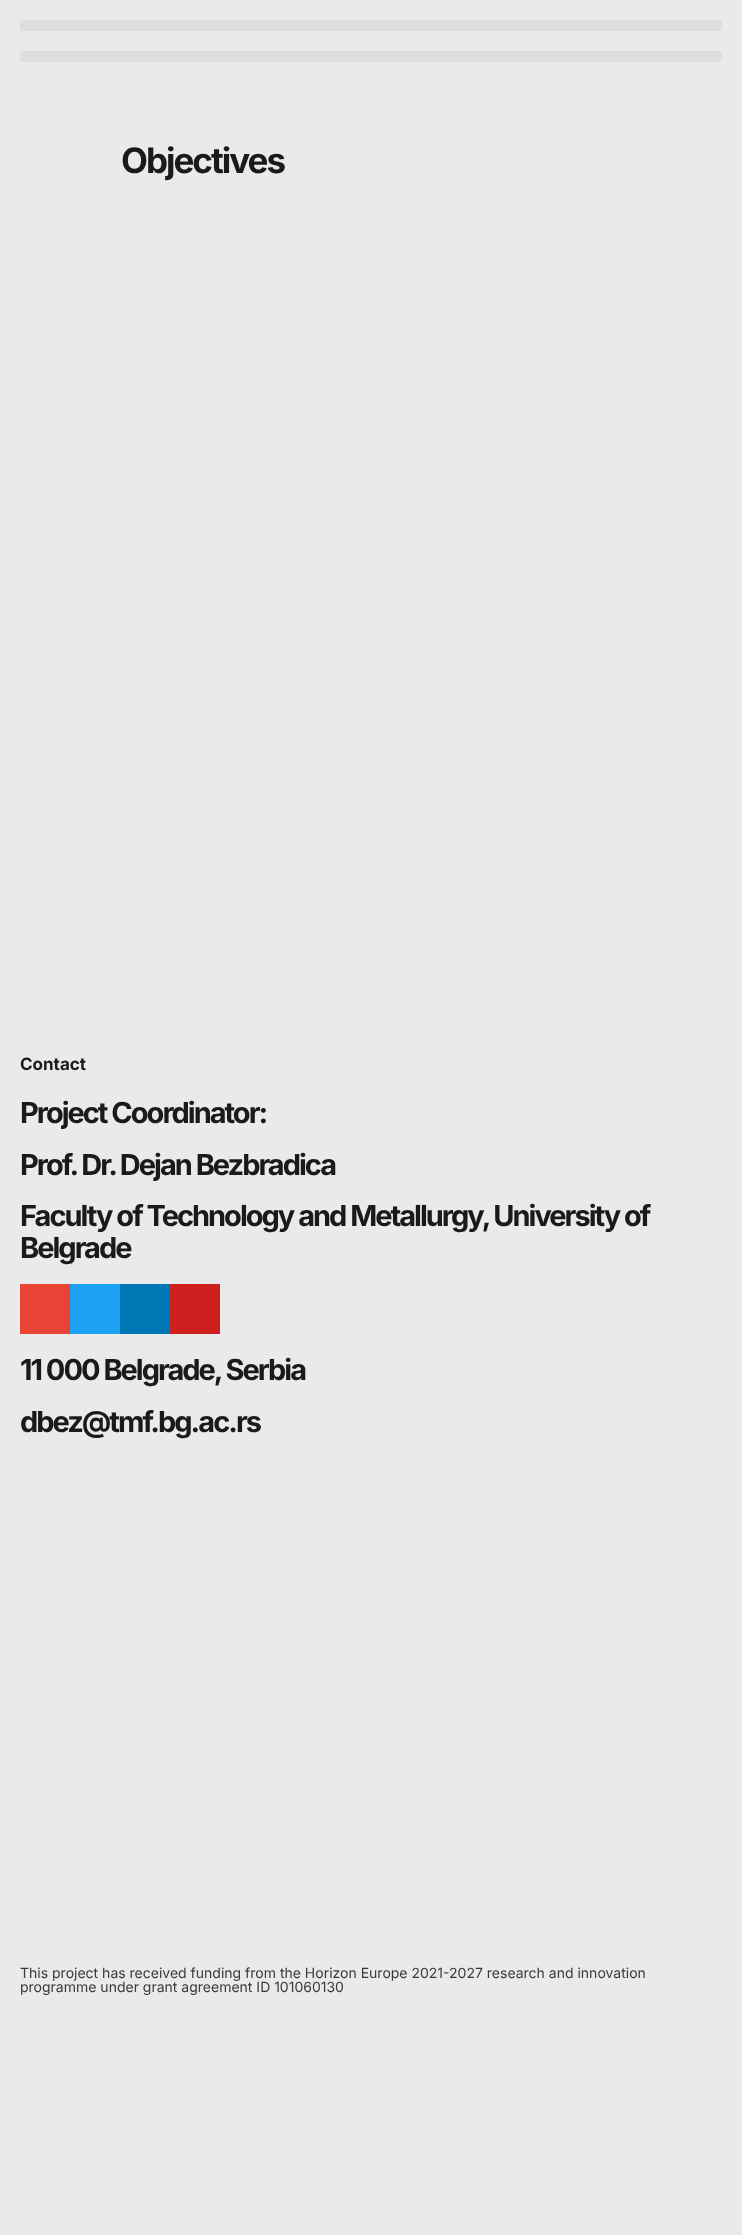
<svg xmlns="http://www.w3.org/2000/svg" width="742" height="2235" viewBox="0 0 742 2235">
  <rect width="100%" height="100%" fill="#eaeaea"/>
  <rect x="20" y="20" width="702" height="11" rx="3" fill="#dedede"/>
  <rect x="20" y="51" width="702" height="11" rx="3" fill="#dedede"/>
  <text x="121" y="173" font-family="Inter" font-size="35" font-weight="bold" letter-spacing="-2" fill="#181a1b">Objectives</text>
  <text x="20" y="1070" font-family="Inter" font-size="17" font-weight="bold" fill="#181a1b">Contact</text>
  <text x="20" y="1123" font-family="Inter" font-size="29" font-weight="bold" letter-spacing="-2" fill="#181a1b">Project Coordinator:</text>
  <text x="20" y="1175" font-family="Inter" font-size="29" font-weight="bold" letter-spacing="-2" fill="#181a1b">Prof. Dr. Dejan Bezbradica</text>
  <text x="20" y="1226" font-family="Inter" font-size="29" font-weight="bold" letter-spacing="-2" fill="#181a1b">Faculty of Technology and Metallurgy, University of</text>
  <text x="20" y="1258" font-family="Inter" font-size="29" font-weight="bold" letter-spacing="-2" fill="#181a1b">Belgrade</text>
  <rect x="20" y="1284" width="50" height="50" fill="#ea4335"/>
  <rect x="70" y="1284" width="50" height="50" fill="#1da1f2"/>
  <rect x="120" y="1284" width="50" height="50" fill="#0077b5"/>
  <rect x="170" y="1284" width="50" height="50" fill="#cd201f"/>
  <text x="20" y="1380" font-family="Inter" font-size="29" font-weight="bold" letter-spacing="-2" fill="#181a1b">11 000 Belgrade, Serbia</text>
  <text x="20" y="1432" font-family="Inter" font-size="29" font-weight="bold" letter-spacing="-2" fill="#181a1b">dbez@tmf.bg.ac.rs</text>
  <text x="20" y="1978" font-family="Inter" font-size="14" fill="#383a3c">This project has received funding from the Horizon Europe 2021-2027 research and innovation</text>
  <text x="20" y="1992" font-family="Inter" font-size="14" fill="#383a3c">programme under grant agreement ID 101060130</text>
</svg>
